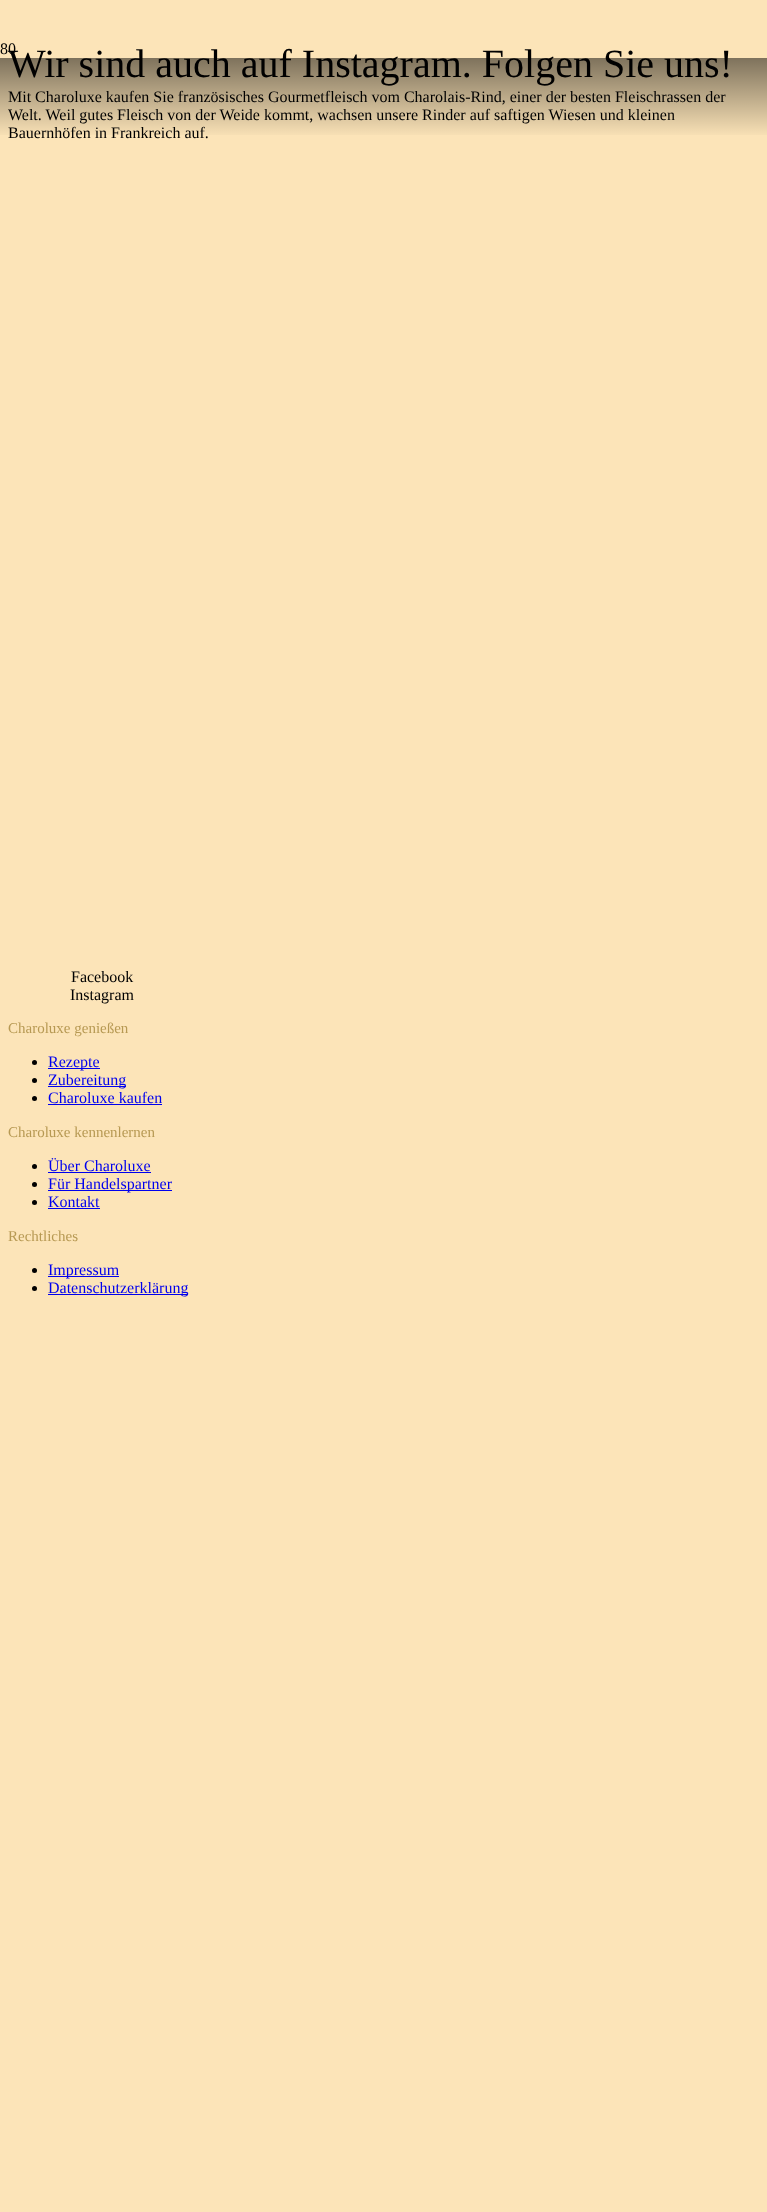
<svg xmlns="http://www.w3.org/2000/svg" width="767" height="2212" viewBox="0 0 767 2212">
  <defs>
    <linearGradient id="g1" gradientUnits="userSpaceOnUse" x1="384" y1="138" x2="384" y2="58"><stop offset="0" stop-color="#000000" stop-opacity="0"/><stop offset="1" stop-color="#000000" stop-opacity="0.5"/></linearGradient>
  </defs>
  <rect width="100%" height="100%" fill="#fce4b8"/>
  <text x="8" y="77" font-family="Liberation Serif" font-size="40" fill="#000000">Wir sind auch auf Instagram. Folgen Sie uns!</text>
  <text x="0" y="54" font-family="Liberation Serif" font-size="16" fill="#000000">80</text>
  <text x="8" y="102" font-family="Liberation Serif" font-size="16" fill="#000000">Mit Charoluxe kaufen Sie französisches Gourmetfleisch vom Charolais-Rind, einer der besten Fleischrassen der</text>
  <text x="8" y="120" font-family="Liberation Serif" font-size="16" fill="#000000">Welt. Weil gutes Fleisch von der Weide kommt, wachsen unsere Rinder auf saftigen Wiesen und kleinen</text>
  <text x="8" y="138" font-family="Liberation Serif" font-size="16" fill="#000000">Bauernhöfen in Frankreich auf.</text>
  <rect x="0" y="58" width="767" height="77" fill="url(#g1)"/>
  <text x="71" y="982" font-family="Liberation Serif" font-size="16" fill="#000000">Facebook</text>
  <text x="70" y="1000" font-family="Liberation Serif" font-size="16" fill="#000000">Instagram</text>
  <text x="8" y="1033" font-family="Liberation Serif" font-size="15" fill="#b79953">Charoluxe genießen</text>
  <circle cx="34.5" cy="1062.5" r="2.5" fill="#000000"/>
  <rect x="48" y="1068" width="52" height="1" fill="#0000ee"/>
  <text x="48" y="1067" font-family="Liberation Serif" font-size="16" fill="#0000ee">Rezepte</text>
  <circle cx="34.5" cy="1080.5" r="2.5" fill="#000000"/>
  <rect x="48" y="1086" width="78" height="1" fill="#0000ee"/>
  <text x="48" y="1085" font-family="Liberation Serif" font-size="16" fill="#0000ee">Zubereitung</text>
  <circle cx="34.5" cy="1098.5" r="2.5" fill="#000000"/>
  <text x="48" y="1103" font-family="Liberation Serif" font-size="16" fill="#0000ee">Charoluxe kaufen</text>
  <rect x="48" y="1104" width="114" height="1" fill="#0000ee"/>
  <text x="8" y="1137" font-family="Liberation Serif" font-size="15" fill="#b79953">Charoluxe kennenlernen</text>
  <circle cx="34.5" cy="1166.5" r="2.5" fill="#000000"/>
  <text x="48" y="1171" font-family="Liberation Serif" font-size="16" fill="#0000ee">Über Charoluxe</text>
  <rect x="48" y="1172" width="103" height="1" fill="#0000ee"/>
  <circle cx="34.5" cy="1184.5" r="2.5" fill="#000000"/>
  <rect x="48" y="1190" width="124" height="1" fill="#0000ee"/>
  <text x="48" y="1189" font-family="Liberation Serif" font-size="16" fill="#0000ee">Für Handelspartner</text>
  <circle cx="34.5" cy="1202.5" r="2.5" fill="#000000"/>
  <text x="48" y="1207" font-family="Liberation Serif" font-size="16" fill="#0000ee">Kontakt</text>
  <rect x="48" y="1208" width="52" height="1" fill="#0000ee"/>
  <text x="8" y="1241" font-family="Liberation Serif" font-size="15" fill="#b79953">Rechtliches</text>
  <circle cx="34.5" cy="1270.5" r="2.5" fill="#000000"/>
  <rect x="48" y="1276" width="71" height="1" fill="#0000ee"/>
  <text x="48" y="1275" font-family="Liberation Serif" font-size="16" fill="#0000ee">Impressum</text>
  <circle cx="34.5" cy="1288.5" r="2.5" fill="#000000"/>
  <rect x="48" y="1294" width="140" height="1" fill="#0000ee"/>
  <text x="48" y="1293" font-family="Liberation Serif" font-size="16" fill="#0000ee">Datenschutzerklärung</text>
</svg>
